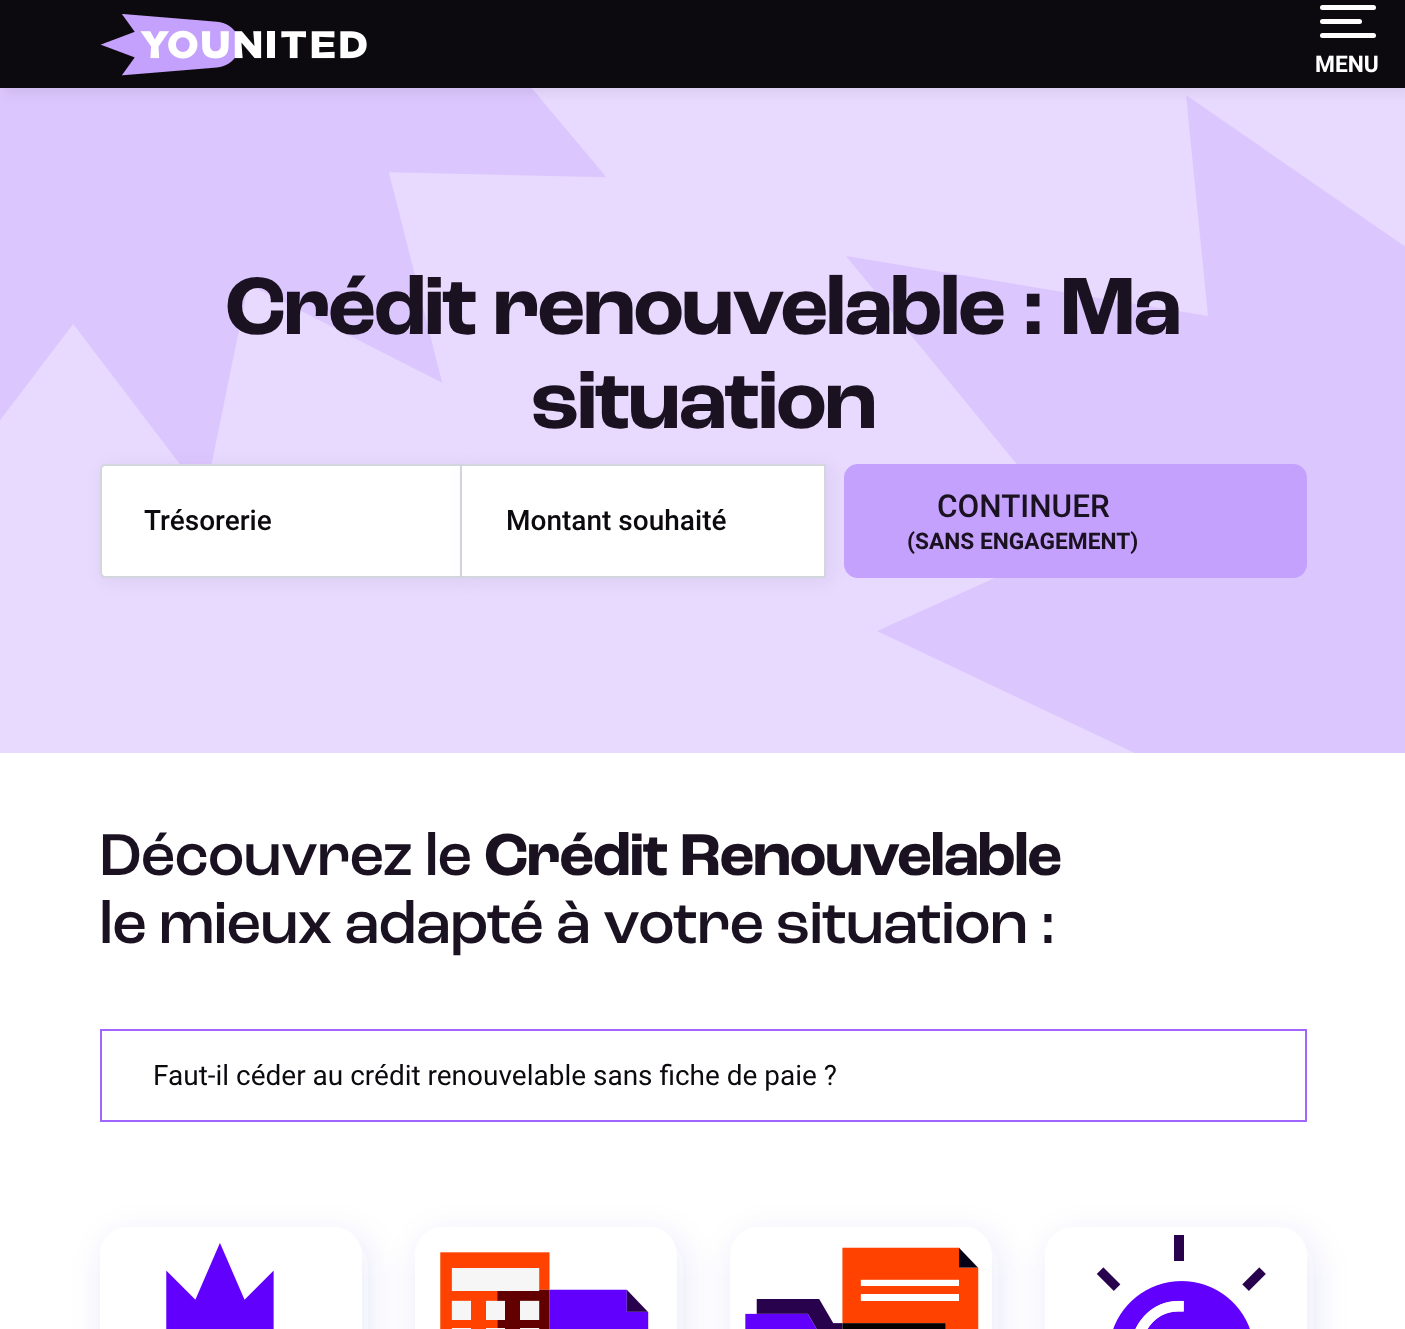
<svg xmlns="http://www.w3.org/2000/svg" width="1405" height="1329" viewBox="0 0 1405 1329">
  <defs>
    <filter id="blur1" x="-50%" y="-200%" width="200%" height="500%"><feGaussianBlur stdDeviation="5"/></filter>
    <filter id="blur2" x="-50%" y="-200%" width="200%" height="500%"><feGaussianBlur stdDeviation="9"/></filter>
    <clipPath id="clip1"><path d="M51 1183H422V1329H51ZM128 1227H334C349.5 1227 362 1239.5 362 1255V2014C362 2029.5 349.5 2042 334 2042H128C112.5 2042 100 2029.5 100 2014V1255C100 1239.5 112.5 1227 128 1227Z" clip-rule="evenodd"/></clipPath>
    <filter id="blur3" x="-50%" y="-200%" width="200%" height="500%"><feGaussianBlur stdDeviation="17.5"/></filter>
    <clipPath id="clip2"><path d="M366 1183H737V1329H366ZM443 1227H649C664.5 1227 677 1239.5 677 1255V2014C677 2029.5 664.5 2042 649 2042H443C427.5 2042 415 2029.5 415 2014V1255C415 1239.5 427.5 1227 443 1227Z" clip-rule="evenodd"/></clipPath>
    <clipPath id="clip3"><path d="M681 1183H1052V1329H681ZM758 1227H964C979.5 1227 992 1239.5 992 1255V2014C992 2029.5 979.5 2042 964 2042H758C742.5 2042 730 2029.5 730 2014V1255C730 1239.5 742.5 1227 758 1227Z" clip-rule="evenodd"/></clipPath>
    <clipPath id="clip4"><path d="M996 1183H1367V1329H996ZM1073 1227H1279C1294.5 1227 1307 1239.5 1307 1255V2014C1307 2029.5 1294.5 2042 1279 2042H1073C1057.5 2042 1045 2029.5 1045 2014V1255C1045 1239.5 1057.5 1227 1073 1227Z" clip-rule="evenodd"/></clipPath>
  </defs>
  <rect width="100%" height="100%" fill="#e8d9ff"/>
  <image x="0" y="88" width="606" height="376" href="img1.png"/>
  <path d="M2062 958C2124 849 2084 716 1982 646L1186 95L1208 316L846 256L1079 540L877 631L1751 1045C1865 1096 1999 1067 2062 958" fill="#dcc6fe"/>
  <rect x="4" y="7" width="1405" height="88" fill="#000000" fill-opacity="0.05" filter="url(#blur1)"/>
  <rect x="0" y="0" width="1405" height="88" fill="#0d0a0f"/>
  <image x="100" y="14" width="267" height="62" href="img2.png"/>
  <rect x="1320" y="33" width="56" height="5" rx="2.5" fill="#ffffff"/>
  <rect x="1320" y="5" width="56" height="5" rx="2.5" fill="#ffffff"/>
  <rect x="1320" y="19" width="42" height="5" rx="2.5" fill="#ffffff"/>
  <text x="1315" y="72" font-family="Roboto" font-size="22.75" font-weight="bold" fill="#ffffff">MENU</text>
  <text x="225" y="334" font-family="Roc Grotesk" font-size="85.3" font-weight="bold" letter-spacing="-2.1" fill="#1b1221">Crédit renouvelable : Ma</text>
  <text x="531" y="428" font-family="Roc Grotesk" font-size="85.3" font-weight="bold" letter-spacing="-2.1" fill="#1b1221">situation</text>
  <rect x="103" y="467" width="363" height="114" fill="#000000" fill-opacity="0.06" filter="url(#blur2)"/>
  <path d="M105 465H461V577H105C103 577 101 575 101 573V469C101 467 103 465 105 465Z" fill="#ffffff" stroke="#d3d7dd" stroke-width="2"/>
  <text x="144" y="530" font-family="Roboto" font-size="28" font-weight="500" fill="#0d0a0f">Trésorerie</text>
  <rect x="466" y="467" width="364" height="114" fill="#000000" fill-opacity="0.06" filter="url(#blur2)"/>
  <rect x="462" y="466" width="362" height="110" fill="#ffffff"/>
  <rect x="462" y="464" width="364" height="2" fill="#d3d7dd"/>
  <rect x="824" y="464" width="2" height="114" fill="#d3d7dd"/>
  <rect x="462" y="576" width="364" height="2" fill="#d3d7dd"/>
  <text x="506" y="530" font-family="Roboto" font-size="28" font-weight="500" fill="#0d0a0f">Montant souhaité</text>
  <rect x="845" y="465" width="461" height="112" rx="13" fill="#c5a1fe" stroke="#c5a1fe" stroke-width="2"/>
  <text x="937" y="517" font-family="Roboto" font-size="31.5" font-weight="500" fill="#1b1221">CONTINUER</text>
  <text x="907" y="549" font-family="Roboto" font-size="22.75" font-weight="bold" fill="#1b1221">(SANS ENGAGEMENT)</text>
  <rect x="0" y="753" width="1405" height="576" fill="#ffffff"/>
  <text x="99" y="875" font-family="Roc Grotesk" font-size="62.1" font-weight="500" letter-spacing="-1.4" fill="#1b1221">Découvrez le</text>
  <text x="484" y="875" font-family="Roc Grotesk" font-size="62.1" font-weight="bold" letter-spacing="-1.4" fill="#1b1221">Crédit Renouvelable</text>
  <text x="99" y="943" font-family="Roc Grotesk" font-size="62.1" font-weight="500" letter-spacing="-1.4" fill="#1b1221">le mieux adapté à votre situation :</text>
  <rect x="101" y="1030" width="1205" height="91" fill="none" stroke="#a166fe" stroke-width="2"/>
  <text x="153" y="1085" font-family="Roboto" font-size="28" fill="#0d0a0f">Faut-il céder au crédit renouvelable sans fiche de paie ?</text>
  <g clip-path="url(#clip1)">
    <rect x="105" y="1237" width="263" height="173" rx="28" fill="#353acb" fill-opacity="0.1" filter="url(#blur3)"/>
  </g>
  <image x="166" y="1243" width="108" height="86" href="img3.png"/>
  <g clip-path="url(#clip2)">
    <rect x="420" y="1237" width="263" height="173" rx="28" fill="#353acb" fill-opacity="0.1" filter="url(#blur3)"/>
  </g>
  <image x="440" y="1252" width="209" height="77" href="img4.png"/>
  <g clip-path="url(#clip3)">
    <rect x="735" y="1237" width="263" height="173" rx="28" fill="#353acb" fill-opacity="0.1" filter="url(#blur3)"/>
  </g>
  <image x="745" y="1247" width="234" height="82" href="img5.png"/>
  <g clip-path="url(#clip4)">
    <rect x="1050" y="1237" width="263" height="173" rx="28" fill="#353acb" fill-opacity="0.1" filter="url(#blur3)"/>
  </g>
  <image x="1096" y="1235" width="170" height="94" href="img6.png"/>
</svg>
